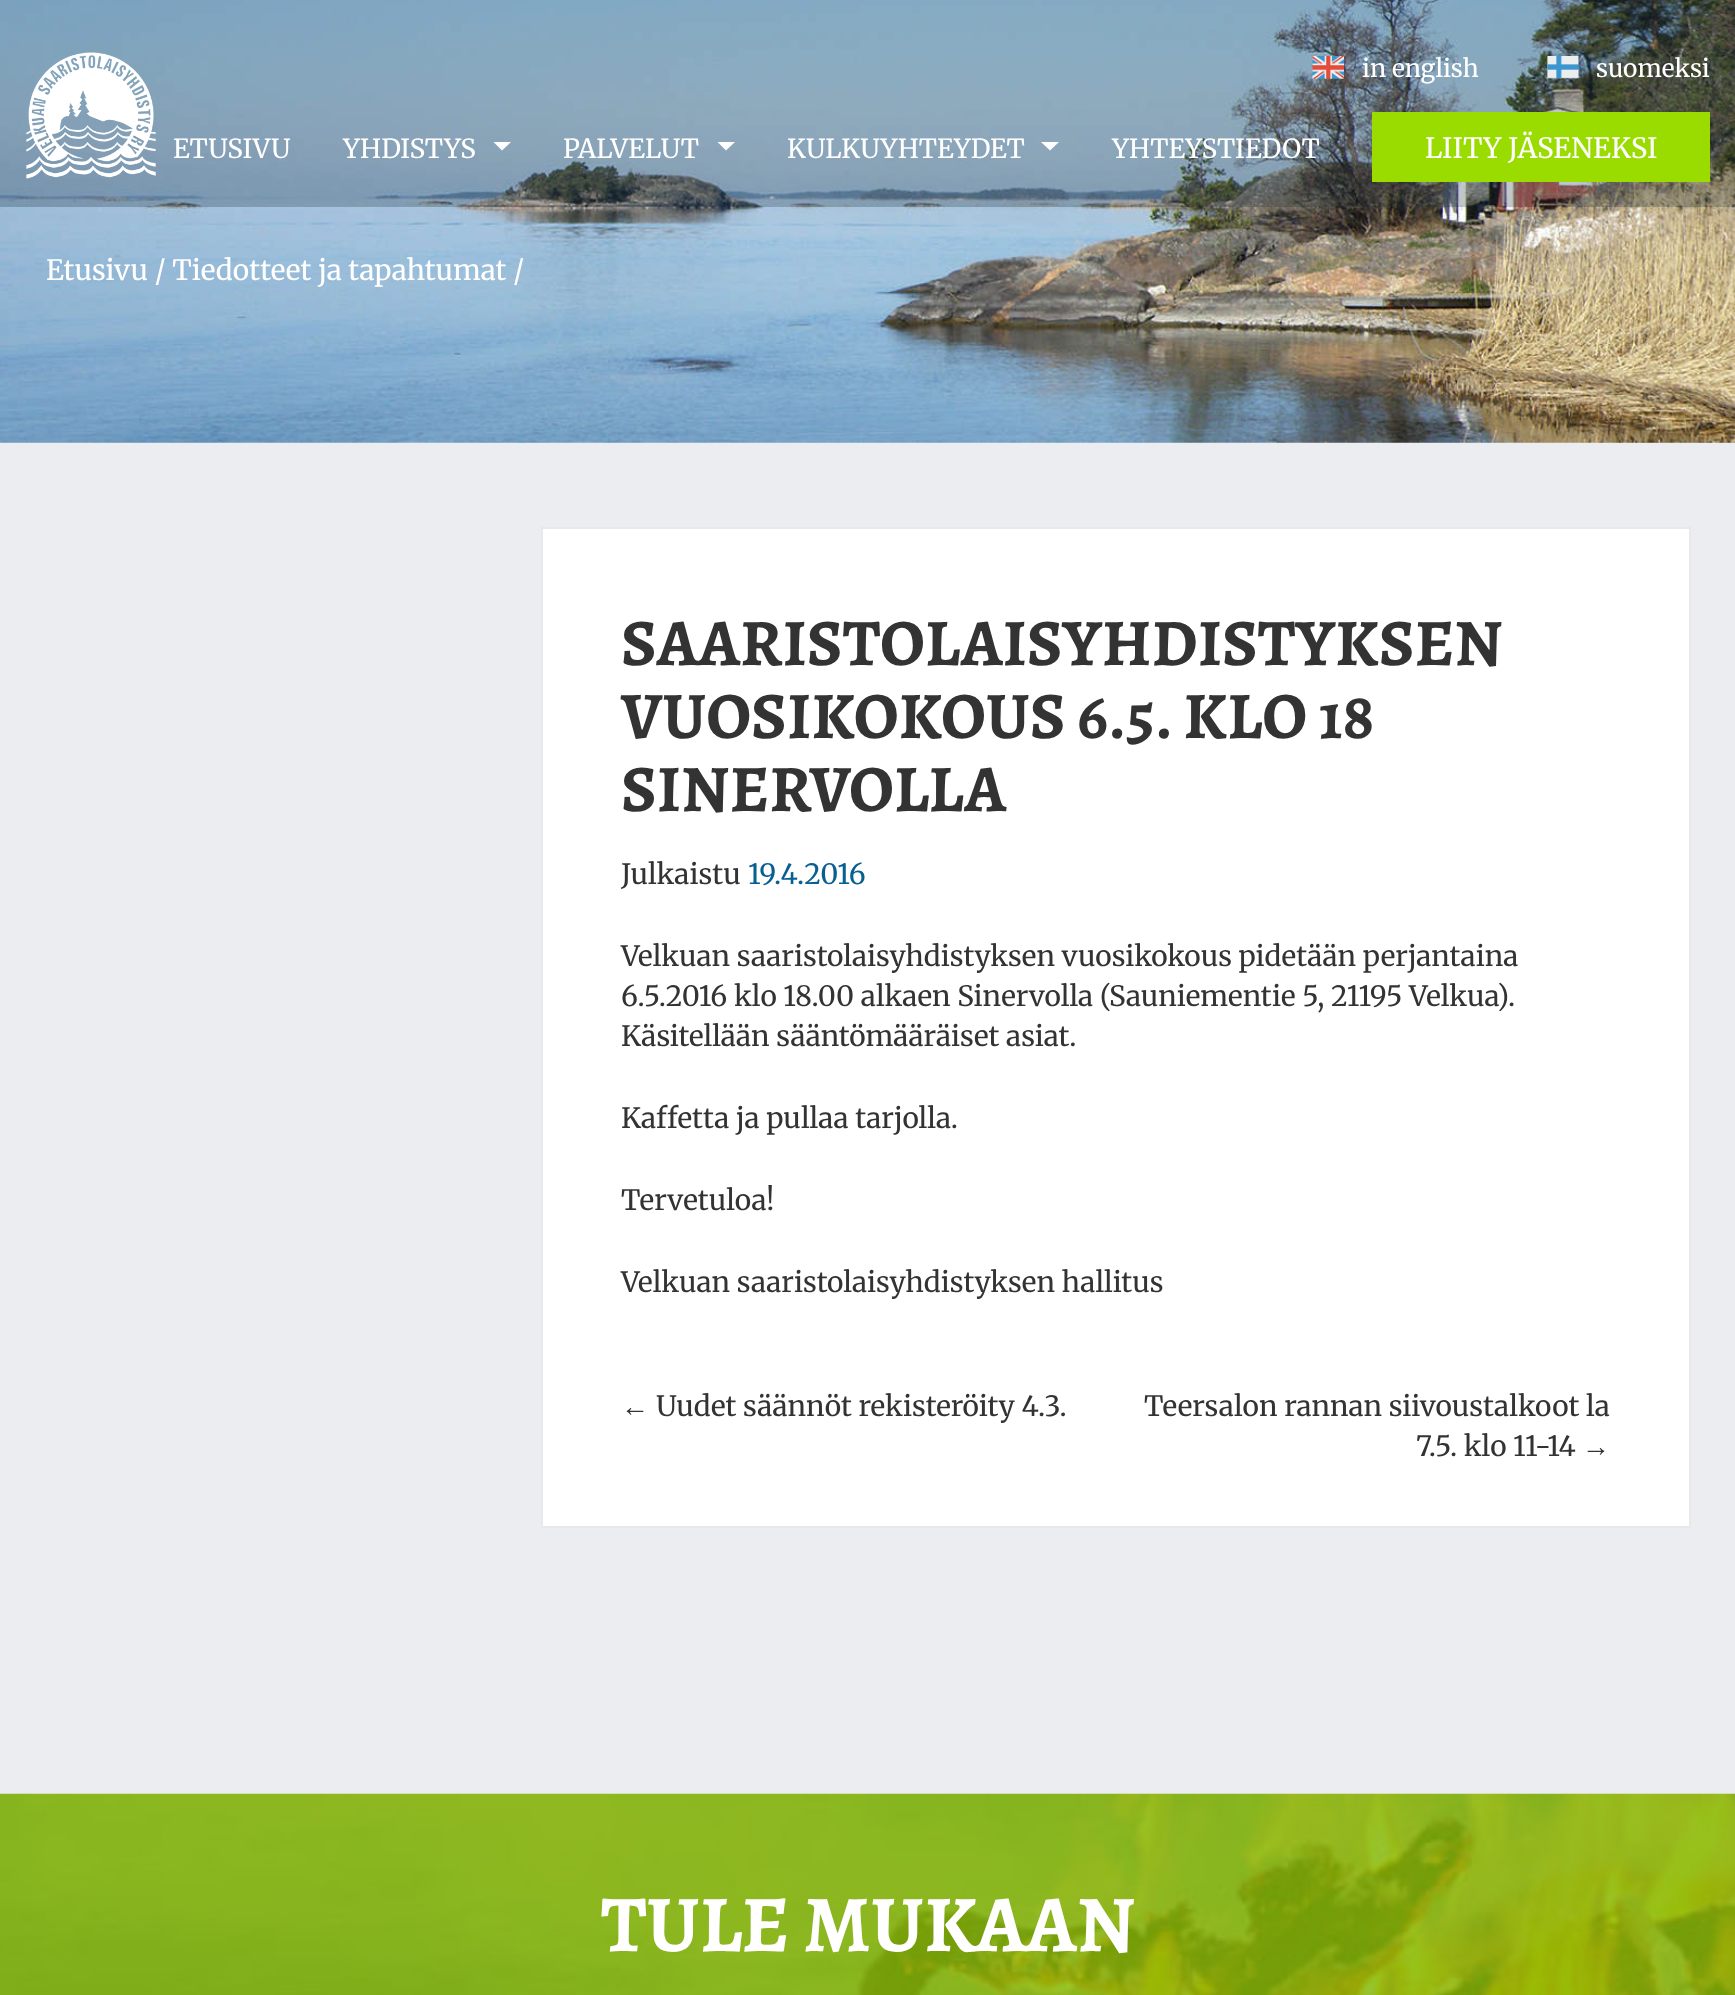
<svg xmlns="http://www.w3.org/2000/svg" width="1735" height="1995" viewBox="0 0 1735 1995">
  <rect width="100%" height="100%" fill="#ecedf1"/>
  <image x="0" y="0" width="1735" height="443" href="img1.png"/>
  <rect x="0" y="0" width="1735" height="207" fill="#102834" fill-opacity="0.25"/>
  <image x="26" y="52" width="130" height="127" href="img2.png"/>
  <image x="1312" y="56" width="32" height="23" href="img3.png"/>
  <text x="1362" y="77" font-family="Merriweather" font-size="24.5" fill="#ffffff">in english</text>
  <image x="1547" y="56" width="32" height="23" href="img4.png"/>
  <text x="1596" y="77" font-family="Merriweather" font-size="24.5" fill="#ffffff">suomeksi</text>
  <text x="173" y="158" font-family="Merriweather" font-size="26.25" fill="#ffffff">ETUSIVU</text>
  <text x="343" y="158" font-family="Merriweather" font-size="26.25" fill="#ffffff">YHDISTYS</text>
  <path d="M493.5 142H511L502 150.5Z" fill="#ffffff"/>
  <text x="563" y="158" font-family="Merriweather" font-size="26.25" fill="#ffffff">PALVELUT</text>
  <path d="M717.5 142H735L726 150.5Z" fill="#ffffff"/>
  <text x="787" y="158" font-family="Merriweather" font-size="26.25" fill="#ffffff">KULKUYHTEYDET</text>
  <path d="M1041 142H1059L1050 150.5Z" fill="#ffffff"/>
  <text x="1112" y="158" font-family="Merriweather" font-size="26.25" fill="#ffffff">YHTEYSTIEDOT</text>
  <rect x="1372" y="112" width="338" height="70" fill="#9adb00"/>
  <text x="1425" y="158" font-family="Merriweather" font-size="28" fill="#ffffff">LIITY JÄSENEKSI</text>
  <text x="46" y="280" font-family="Merriweather" font-size="28" fill="#ffffff">Etusivu / Tiedotteet ja tapahtumat /</text>
  <rect x="542" y="528" width="1148" height="999" fill="#ffffff" stroke="#e8e7ea" stroke-width="2"/>
  <text x="621" y="665" font-family="Alegreya" font-size="66.5" font-weight="bold" fill="#333333">SAARISTOLAISYHDISTYKSEN</text>
  <text x="621" y="738" font-family="Alegreya" font-size="66.5" font-weight="bold" fill="#333333">VUOSIKOKOUS 6.5. KLO 18</text>
  <text x="621" y="811" font-family="Alegreya" font-size="66.5" font-weight="bold" fill="#333333">SINERVOLLA</text>
  <text x="621" y="884" font-family="Merriweather" font-size="28" fill="#333333">Julkaistu</text>
  <text x="748" y="884" font-family="Merriweather" font-size="28" fill="#086092">19.4.2016</text>
  <text x="621" y="966" font-family="Merriweather" font-size="28" fill="#333333">Velkuan saaristolaisyhdistyksen vuosikokous pidetään perjantaina</text>
  <text x="621" y="1006" font-family="Merriweather" font-size="28" fill="#333333">6.5.2016 klo 18.00 alkaen Sinervolla (Sauniementie 5, 21195 Velkua).</text>
  <text x="621" y="1046" font-family="Merriweather" font-size="28" fill="#333333">Käsitellään sääntömääräiset asiat.</text>
  <text x="621" y="1128" font-family="Merriweather" font-size="28" fill="#333333">Kaffetta ja pullaa tarjolla.</text>
  <text x="621" y="1210" font-family="Merriweather" font-size="28" fill="#333333">Tervetuloa!</text>
  <text x="621" y="1292" font-family="Merriweather" font-size="28" fill="#333333">Velkuan saaristolaisyhdistyksen hallitus</text>
  <text x="621" y="1416" font-family="Liberation Serif" font-size="28" fill="#333333">←</text>
  <text x="656" y="1416" font-family="Merriweather" font-size="28" fill="#333333">Uudet säännöt rekisteröity 4.3.</text>
  <text x="1144" y="1416" font-family="Merriweather" font-size="28" fill="#333333">Teersalon rannan siivoustalkoot la</text>
  <text x="1416" y="1456" font-family="Merriweather" font-size="28" fill="#333333">7.5. klo 11-14</text>
  <text x="1582" y="1456" font-family="Liberation Serif" font-size="28" fill="#333333">→</text>
  <image x="0" y="1793" width="1735" height="202" href="img5.png"/>
  <text x="601" y="1951" font-family="Alegreya" font-size="80.5" font-weight="bold" fill="#ffffff">TULE MUKAAN</text>
</svg>
